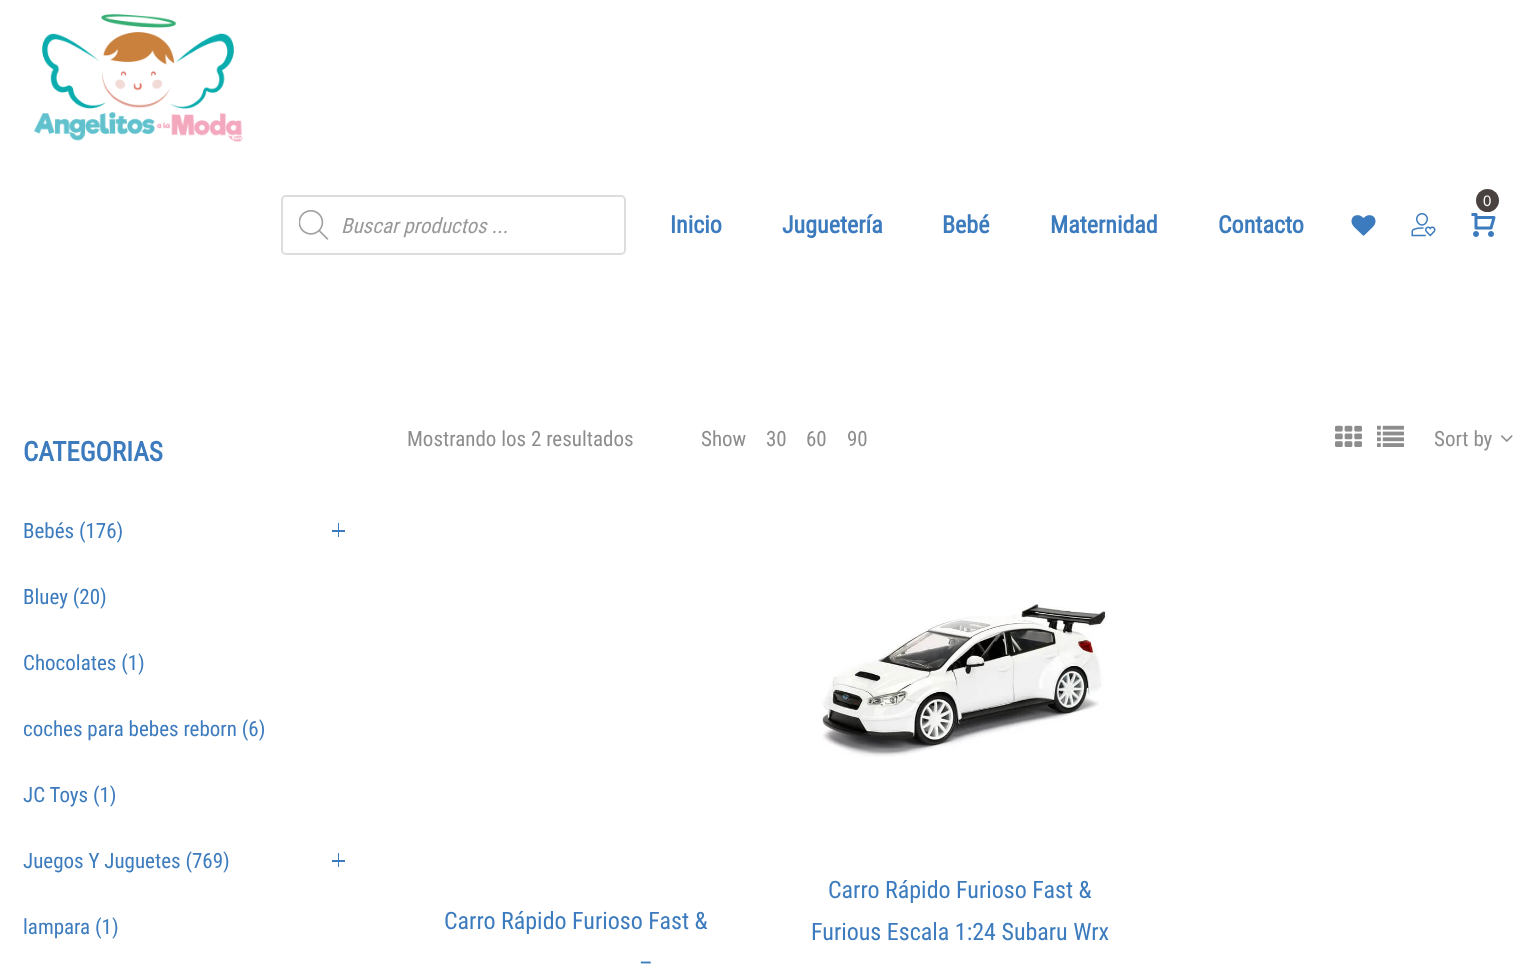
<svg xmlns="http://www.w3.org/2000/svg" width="1536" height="966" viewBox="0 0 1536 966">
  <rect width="100%" height="100%" fill="#ffffff"/>
  <image x="33" y="14" width="210" height="128" href="img1.png"/>
  <circle cx="1487.5" cy="200.5" r="11.5" fill="#4a4141"/>
  <text x="1483" y="206" font-family="Liberation Sans" font-size="15" fill="#ffffff">0</text>
  <image x="1471" y="213" width="25" height="24" href="img2.png"/>
  <rect x="282" y="196" width="343" height="58" rx="4" fill="none" stroke="#dddddd" stroke-width="2"/>
  <image x="299" y="210" width="30" height="30" href="img3.png"/>
  <text x="341" y="233" font-family="Roboto Condensed" font-size="21" font-style="italic" fill="#999999">Buscar productos ...</text>
  <text x="670" y="233" font-family="Roboto Condensed" font-size="24" font-weight="bold" fill="#3c7bbd">Inicio</text>
  <text x="782" y="233" font-family="Roboto Condensed" font-size="24" font-weight="bold" fill="#3c7bbd">Juguetería</text>
  <text x="942" y="233" font-family="Roboto Condensed" font-size="24" font-weight="bold" fill="#3c7bbd">Bebé</text>
  <text x="1050" y="233" font-family="Roboto Condensed" font-size="24" font-weight="bold" fill="#3c7bbd">Maternidad</text>
  <text x="1218" y="233" font-family="Roboto Condensed" font-size="24" font-weight="bold" fill="#3c7bbd">Contacto</text>
  <image x="1351" y="215" width="25" height="21" href="img4.png"/>
  <image x="1411" y="213" width="25" height="24" href="img5.png"/>
  <text x="23" y="461" font-family="Roboto Condensed" font-size="27" font-weight="bold" fill="#3c7bbd">CATEGORIAS</text>
  <text x="23" y="538" font-family="Roboto Condensed" font-size="21" fill="#3c7bbd">Bebés (176)</text>
  <rect x="332" y="530" width="13" height="2" fill="#3c7bbd"/>
  <rect x="338" y="523" width="1" height="14" fill="#3c7bbd"/>
  <text x="23" y="604" font-family="Roboto Condensed" font-size="21" fill="#3c7bbd">Bluey (20)</text>
  <text x="23" y="670" font-family="Roboto Condensed" font-size="21" fill="#3c7bbd">Chocolates (1)</text>
  <text x="23" y="736" font-family="Roboto Condensed" font-size="21" fill="#3c7bbd">coches para bebes reborn (6)</text>
  <text x="23" y="802" font-family="Roboto Condensed" font-size="21" fill="#3c7bbd">JC Toys (1)</text>
  <text x="23" y="868" font-family="Roboto Condensed" font-size="21" fill="#3c7bbd">Juegos Y Juguetes (769)</text>
  <rect x="332" y="860" width="13" height="2" fill="#3c7bbd"/>
  <rect x="338" y="853" width="1" height="14" fill="#3c7bbd"/>
  <text x="23" y="934" font-family="Roboto Condensed" font-size="21" fill="#3c7bbd">lampara (1)</text>
  <text x="407" y="446" font-family="Roboto Condensed" font-size="21" fill="#8d8d8d">Mostrando los 2 resultados</text>
  <text x="701" y="446" font-family="Roboto Condensed" font-size="21" fill="#8d8d8d">Show</text>
  <text x="766" y="446" font-family="Roboto Condensed" font-size="21" fill="#8d8d8d">30</text>
  <text x="806" y="446" font-family="Roboto Condensed" font-size="21" fill="#8d8d8d">60</text>
  <text x="847" y="446" font-family="Roboto Condensed" font-size="21" fill="#8d8d8d">90</text>
  <image x="1335" y="425" width="27" height="22" href="img6.png"/>
  <image x="1377" y="425" width="27" height="22" href="img7.png"/>
  <text x="1434" y="446" font-family="Roboto Condensed" font-size="21" fill="#8d8d8d">Sort by</text>
  <image x="1501" y="435" width="12" height="7" href="img8.png"/>
  <text x="444" y="929" font-family="Roboto Condensed" font-size="24" fill="#3c7bbd">Carro Rápido Furioso Fast &amp;</text>
  <text x="639" y="971" font-family="Roboto Condensed" font-size="24" fill="#3c7bbd">–</text>
  <image x="821" y="603" width="287" height="154" href="img9.png"/>
  <text x="828" y="898" font-family="Roboto Condensed" font-size="24" fill="#3c7bbd">Carro Rápido Furioso Fast &amp;</text>
  <text x="811" y="940" font-family="Roboto Condensed" font-size="24" fill="#3c7bbd">Furious Escala 1:24 Subaru Wrx</text>
</svg>
